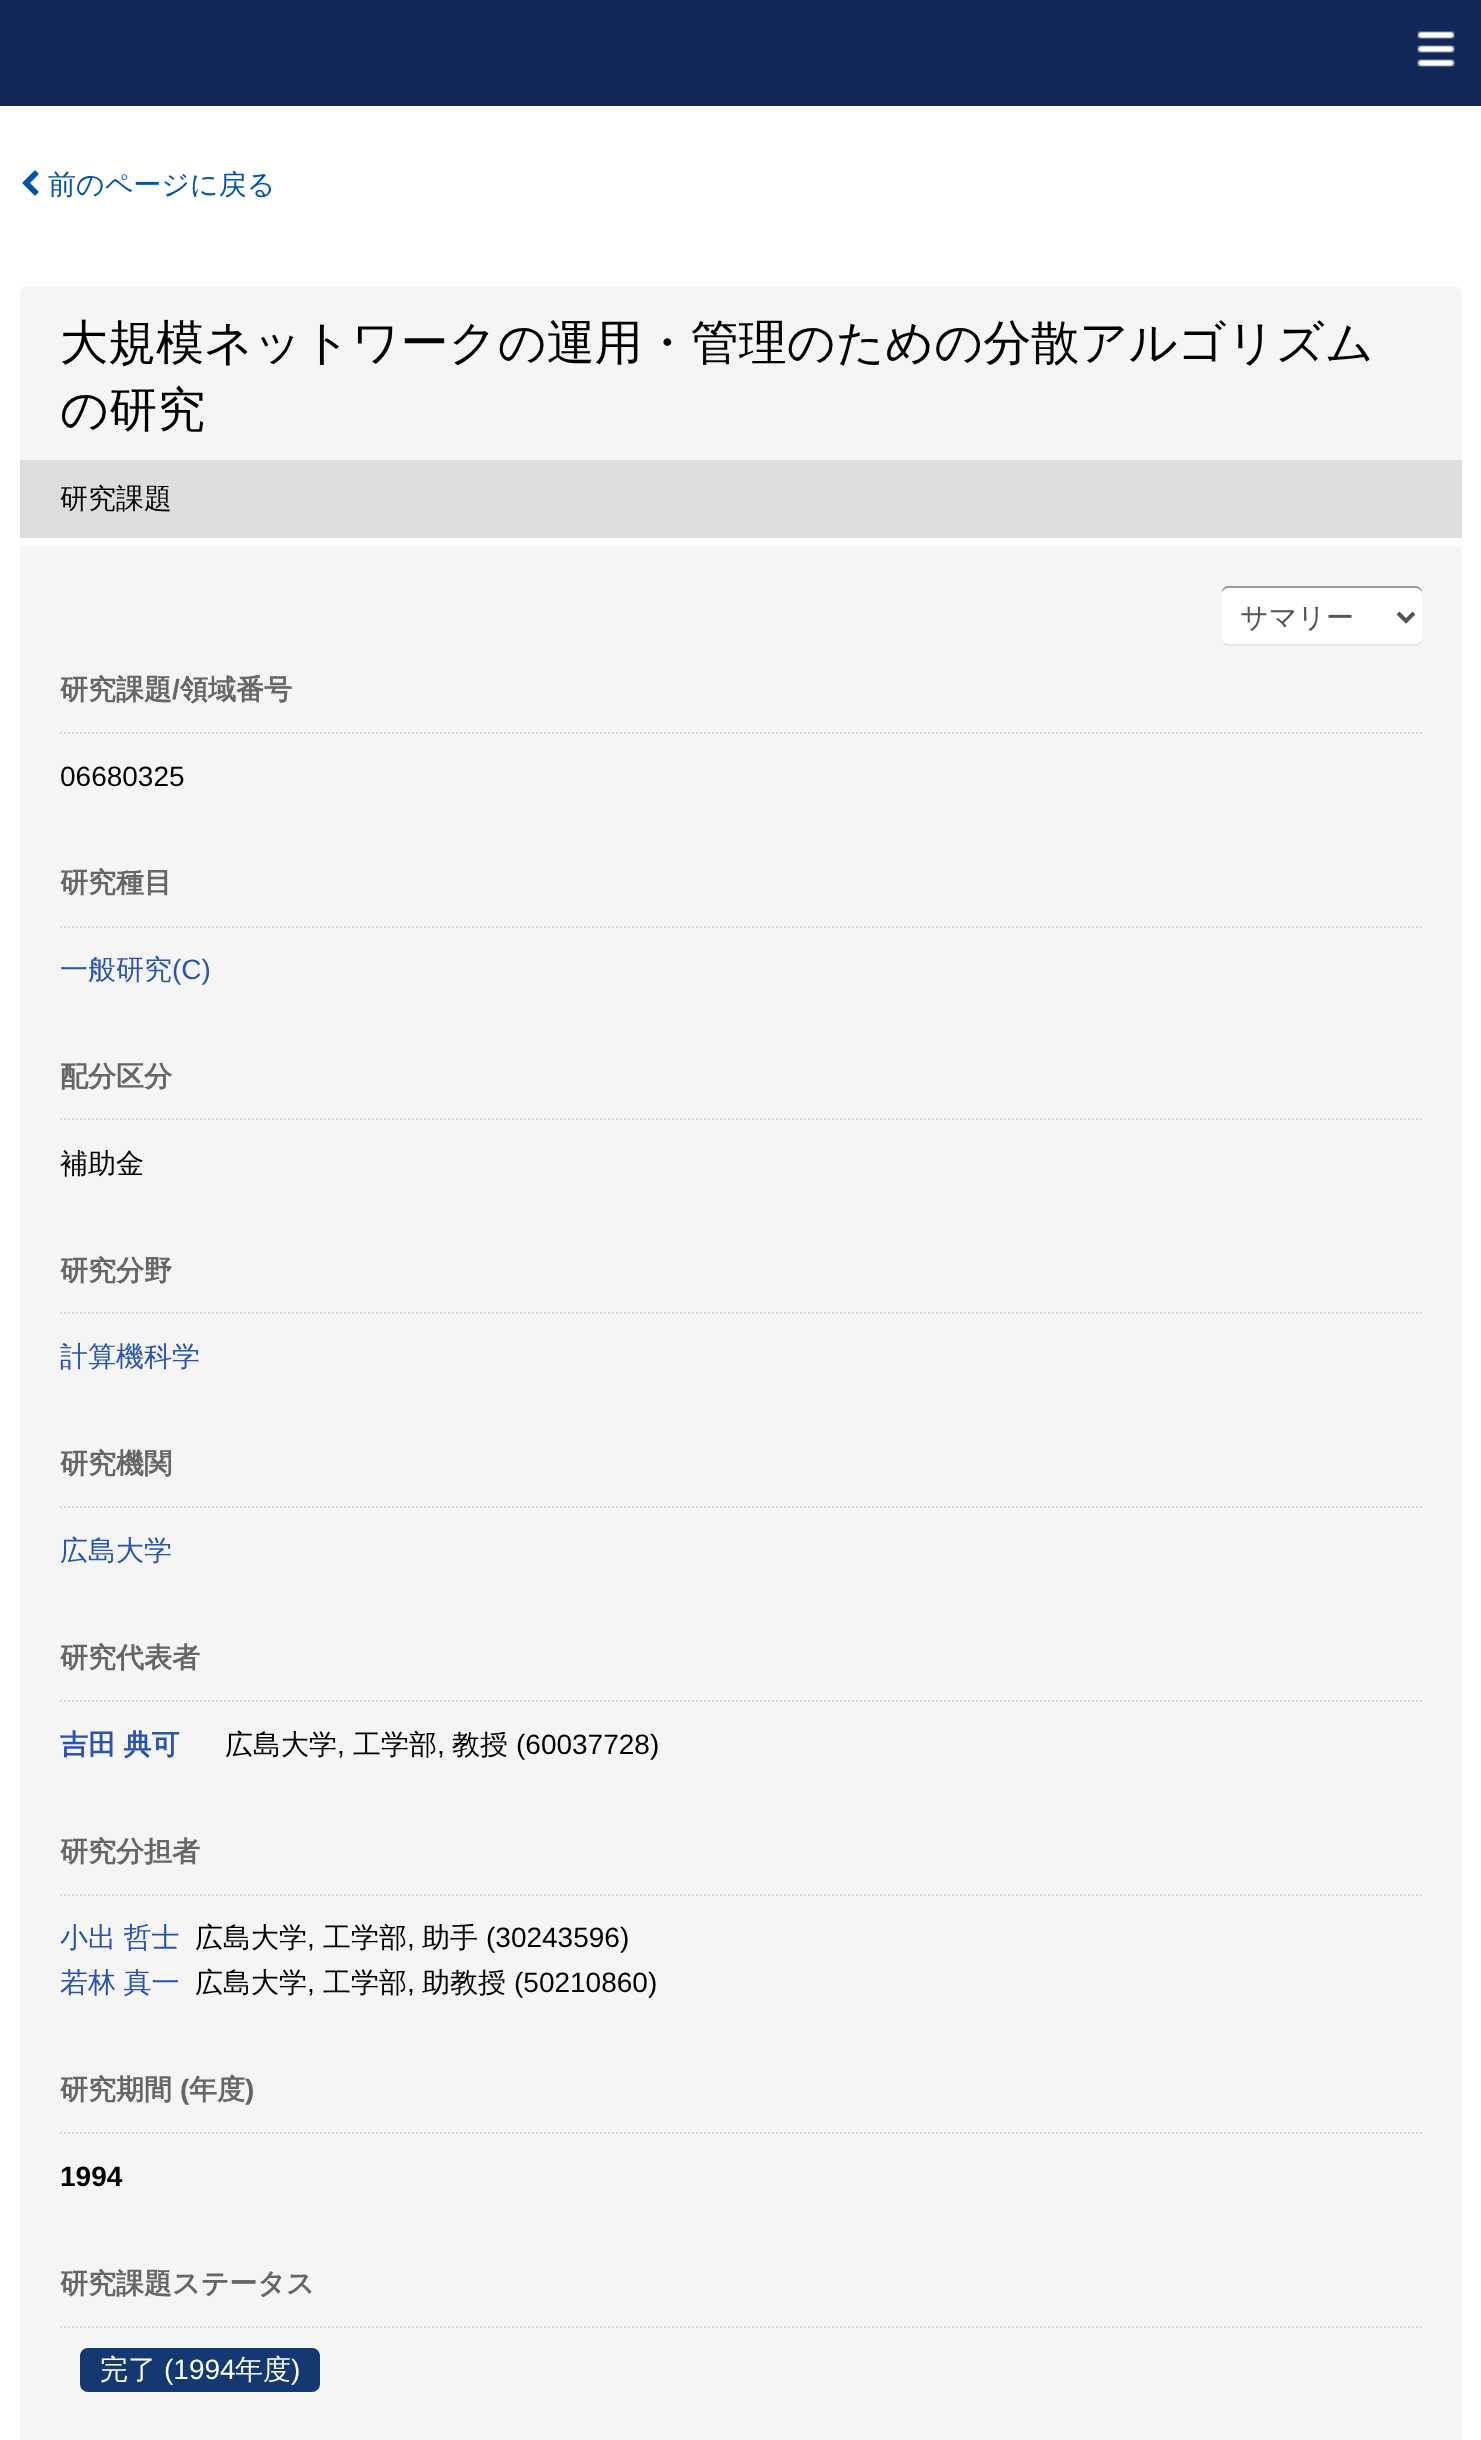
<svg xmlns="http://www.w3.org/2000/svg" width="1481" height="2440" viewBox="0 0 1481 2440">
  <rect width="100%" height="100%" fill="#ffffff"/>
  <rect x="0" y="0" width="1481" height="106" fill="#122858"/>
  <image x="1417" y="31" width="38" height="36" href="img1.png"/>
  <image x="22" y="170" width="17" height="26" href="img2.png"/>
  <text x="48" y="194" font-family="WenQuanYi Zen Hei" font-size="28" font-weight="500" fill="#0055aa">前のページに戻る</text>
  <rect x="20" y="286" width="1442" height="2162" rx="8" fill="#f5f5f5"/>
  <text x="60" y="359" font-family="WenQuanYi Zen Hei" font-size="48" font-weight="500" fill="#000000">大規模ネットワークの運用・管理のための分散アルゴリズム</text>
  <text x="60" y="426" font-family="WenQuanYi Zen Hei" font-size="48" font-weight="500" fill="#000000">の研究</text>
  <rect x="20" y="460" width="1442" height="78" fill="#dddddd"/>
  <text x="60" y="508" font-family="WenQuanYi Zen Hei" font-size="28" font-weight="500" fill="#000000">研究課題</text>
  <rect x="20" y="538" width="1442" height="8" fill="#ffffff"/>
  <rect x="1222" y="586" width="200" height="60" rx="6" fill="#ffffff"/>
  <path d="M1222 638V640C1222 643 1225 646 1228 646H1416C1419 646 1422 643 1422 640V638C1422 641 1419 644 1416 644H1228C1225 644 1222 641 1222 638Z" fill="#e5e5e5"/>
  <path d="M1228 588H1416C1419 588 1422 591 1422 594V592C1422 589 1419 586 1416 586H1228C1225 586 1222 589 1222 592V594C1222 591 1225 588 1228 588Z" fill="#999999"/>
  <path d="M1398 613L1406 621L1414 613" fill="none" stroke="#555555" stroke-width="4"/>
  <text x="1240" y="627" font-family="WenQuanYi Zen Hei" font-size="28" font-weight="500" fill="#555555">サマリー</text>
  <path d="M60 733H1422" fill="none" stroke="#dddddd" stroke-width="2" stroke-dasharray="2 2"/>
  <text x="60" y="699" font-family="WenQuanYi Zen Hei" font-size="28" font-weight="bold" fill="#666666">研究課題</text>
  <text x="172" y="699" font-family="Liberation Sans" font-size="28" font-weight="bold" fill="#666666">/</text>
  <text x="180" y="699" font-family="WenQuanYi Zen Hei" font-size="28" font-weight="bold" fill="#666666">領域番号</text>
  <text x="60" y="786" font-family="Liberation Sans" font-size="28" fill="#000000">06680325</text>
  <path d="M60 927H1422" fill="none" stroke="#dddddd" stroke-width="2" stroke-dasharray="2 2"/>
  <text x="60" y="892" font-family="WenQuanYi Zen Hei" font-size="28" font-weight="bold" fill="#666666">研究種目</text>
  <text x="60" y="979" font-family="WenQuanYi Zen Hei" font-size="28" font-weight="500" fill="#2954af">一般研究</text>
  <text x="172" y="979" font-family="Liberation Sans" font-size="28" fill="#2954af">(C)</text>
  <path d="M60 1119H1422" fill="none" stroke="#dddddd" stroke-width="2" stroke-dasharray="2 2"/>
  <text x="60" y="1086" font-family="WenQuanYi Zen Hei" font-size="28" font-weight="bold" fill="#666666">配分区分</text>
  <text x="60" y="1173" font-family="WenQuanYi Zen Hei" font-size="28" font-weight="500" fill="#000000">補助金</text>
  <path d="M60 1313H1422" fill="none" stroke="#dddddd" stroke-width="2" stroke-dasharray="2 2"/>
  <text x="60" y="1280" font-family="WenQuanYi Zen Hei" font-size="28" font-weight="bold" fill="#666666">研究分野</text>
  <text x="60" y="1366" font-family="WenQuanYi Zen Hei" font-size="28" font-weight="500" fill="#2954af">計算機科学</text>
  <path d="M60 1507H1422" fill="none" stroke="#dddddd" stroke-width="2" stroke-dasharray="2 2"/>
  <text x="60" y="1473" font-family="WenQuanYi Zen Hei" font-size="28" font-weight="bold" fill="#666666">研究機関</text>
  <text x="60" y="1560" font-family="WenQuanYi Zen Hei" font-size="28" font-weight="500" fill="#2954af">広島大学</text>
  <path d="M60 1701H1422" fill="none" stroke="#dddddd" stroke-width="2" stroke-dasharray="2 2"/>
  <text x="60" y="1667" font-family="WenQuanYi Zen Hei" font-size="28" font-weight="bold" fill="#666666">研究代表者</text>
  <text x="60" y="1754" word-spacing="-1" font-family="WenQuanYi Zen Hei" font-size="28" font-weight="bold" fill="#2954af">吉田 典可</text>
  <text x="225" y="1754" font-family="WenQuanYi Zen Hei" font-size="28" font-weight="500" fill="#000000">広島大学</text>
  <text x="337" y="1754" font-family="Liberation Sans" font-size="28" fill="#000000">,</text>
  <text x="353" y="1754" font-family="WenQuanYi Zen Hei" font-size="28" font-weight="500" fill="#000000">工学部</text>
  <text x="437" y="1754" font-family="Liberation Sans" font-size="28" fill="#000000">,</text>
  <text x="452" y="1754" font-family="WenQuanYi Zen Hei" font-size="28" font-weight="500" fill="#000000">教授</text>
  <text x="516" y="1754" font-family="Liberation Sans" font-size="28" fill="#000000">(60037728)</text>
  <path d="M60 1895H1422" fill="none" stroke="#dddddd" stroke-width="2" stroke-dasharray="2 2"/>
  <text x="60" y="1861" font-family="WenQuanYi Zen Hei" font-size="28" font-weight="bold" fill="#666666">研究分担者</text>
  <text x="60" y="1947" word-spacing="-1" font-family="WenQuanYi Zen Hei" font-size="28" font-weight="500" fill="#2954af">小出 哲士</text>
  <text x="195" y="1947" font-family="WenQuanYi Zen Hei" font-size="28" font-weight="500" fill="#000000">広島大学</text>
  <text x="307" y="1947" font-family="Liberation Sans" font-size="28" fill="#000000">,</text>
  <text x="323" y="1947" font-family="WenQuanYi Zen Hei" font-size="28" font-weight="500" fill="#000000">工学部</text>
  <text x="407" y="1947" font-family="Liberation Sans" font-size="28" fill="#000000">,</text>
  <text x="422" y="1947" font-family="WenQuanYi Zen Hei" font-size="28" font-weight="500" fill="#000000">助手</text>
  <text x="486" y="1947" font-family="Liberation Sans" font-size="28" fill="#000000">(30243596)</text>
  <text x="60" y="1992" word-spacing="-1" font-family="WenQuanYi Zen Hei" font-size="28" font-weight="500" fill="#2954af">若林 真一</text>
  <text x="195" y="1992" font-family="WenQuanYi Zen Hei" font-size="28" font-weight="500" fill="#000000">広島大学</text>
  <text x="307" y="1992" font-family="Liberation Sans" font-size="28" fill="#000000">,</text>
  <text x="323" y="1992" font-family="WenQuanYi Zen Hei" font-size="28" font-weight="500" fill="#000000">工学部</text>
  <text x="407" y="1992" font-family="Liberation Sans" font-size="28" fill="#000000">,</text>
  <text x="422" y="1992" font-family="WenQuanYi Zen Hei" font-size="28" font-weight="500" fill="#000000">助教授</text>
  <text x="514" y="1992" font-family="Liberation Sans" font-size="28" fill="#000000">(50210860)</text>
  <path d="M60 2133H1422" fill="none" stroke="#dddddd" stroke-width="2" stroke-dasharray="2 2"/>
  <text x="60" y="2099" font-family="WenQuanYi Zen Hei" font-size="28" font-weight="bold" fill="#666666">研究期間</text>
  <text x="180" y="2099" font-family="Liberation Sans" font-size="28" font-weight="bold" fill="#666666">(</text>
  <text x="189" y="2099" font-family="WenQuanYi Zen Hei" font-size="28" font-weight="bold" fill="#666666">年度</text>
  <text x="245" y="2099" font-family="Liberation Sans" font-size="28" font-weight="bold" fill="#666666">)</text>
  <text x="60" y="2186" font-family="Liberation Sans" font-size="28" font-weight="bold" fill="#000000">1994</text>
  <path d="M60 2327H1422" fill="none" stroke="#dddddd" stroke-width="2" stroke-dasharray="2 2"/>
  <text x="60" y="2293" font-family="WenQuanYi Zen Hei" font-size="28" font-weight="bold" fill="#666666">研究課題ステータス</text>
  <rect x="80" y="2348" width="240" height="44" rx="8" fill="#143872"/>
  <text x="100" y="2379" font-family="WenQuanYi Zen Hei" font-size="28" font-weight="500" fill="#ffffff">完了</text>
  <text x="164" y="2379" font-family="Liberation Sans" font-size="28" fill="#ffffff">(1994</text>
  <text x="235" y="2379" font-family="WenQuanYi Zen Hei" font-size="28" font-weight="500" fill="#ffffff">年度</text>
  <text x="291" y="2379" font-family="Liberation Sans" font-size="28" fill="#ffffff">)</text>
</svg>
